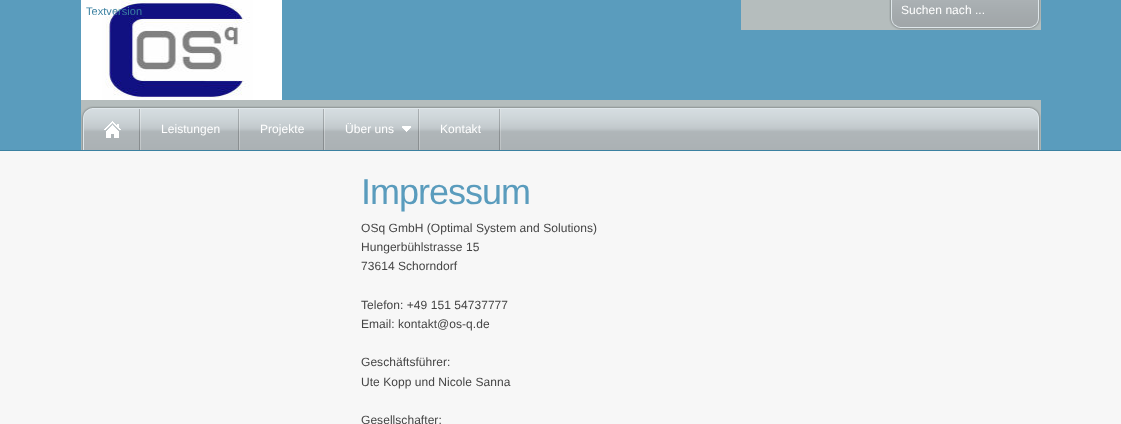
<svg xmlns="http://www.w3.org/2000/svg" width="1121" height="424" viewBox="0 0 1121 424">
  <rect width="100%" height="100%" fill="#f7f7f7"/>
  <rect x="0" y="0" width="1121" height="150" fill="#5a9cbd"/>
  <image x="81" y="0" width="201" height="100" href="img1.png"/>
  <image x="741" y="0" width="300" height="30" href="img2.png"/>
  <text x="901" y="14" font-family="Liberation Sans" font-size="12" letter-spacing="0.05" fill="#ffffff">Suchen nach ...</text>
  <text x="86" y="15" font-family="Liberation Sans" font-size="11" letter-spacing="0.05" fill="#3b81a1">Textversion</text>
  <image x="81" y="100" width="960" height="50" href="img3.png"/>
  <image x="104" y="109" width="37" height="41" href="img4.png"/>
  <image x="238" y="109" width="2" height="41" href="img5.png"/>
  <text x="161" y="133" font-family="Liberation Sans" font-size="12" letter-spacing="0.05" fill="#ffffff">Leistungen</text>
  <image x="323" y="109" width="2" height="41" href="img6.png"/>
  <text x="260" y="133" font-family="Liberation Sans" font-size="12" letter-spacing="0.05" fill="#ffffff">Projekte</text>
  <image x="402" y="109" width="18" height="41" href="img7.png"/>
  <text x="345" y="133" font-family="Liberation Sans" font-size="12" letter-spacing="0.05" fill="#ffffff">Über uns</text>
  <image x="499" y="109" width="2" height="41" href="img5.png"/>
  <text x="440" y="133" font-family="Liberation Sans" font-size="12" letter-spacing="0.05" fill="#ffffff">Kontakt</text>
  <rect x="0" y="150" width="1121" height="1" fill="#3b81a1"/>
  <text x="361" y="204" font-family="Liberation Sans" font-size="36" letter-spacing="-1" fill="#5a9cbd">Impressum</text>
  <text x="361" y="232" font-family="Liberation Sans" font-size="12" letter-spacing="0.05" fill="#444444">OSq GmbH (Optimal System and Solutions)</text>
  <text x="361" y="251" font-family="Liberation Sans" font-size="12" letter-spacing="0.05" fill="#444444">Hungerbühlstrasse 15</text>
  <text x="361" y="270" font-family="Liberation Sans" font-size="12" letter-spacing="0.05" fill="#444444">73614 Schorndorf</text>
  <text x="361" y="309" font-family="Liberation Sans" font-size="12" letter-spacing="0.05" fill="#444444">Telefon: +49 151 54737777</text>
  <text x="361" y="328" font-family="Liberation Sans" font-size="12" letter-spacing="0.05" fill="#444444">Email: kontakt@os-q.de</text>
  <text x="361" y="366" font-family="Liberation Sans" font-size="12" letter-spacing="0.05" fill="#444444">Geschäftsführer:</text>
  <text x="361" y="386" font-family="Liberation Sans" font-size="12" letter-spacing="0.05" fill="#444444">Ute Kopp und Nicole Sanna</text>
  <text x="361" y="424" font-family="Liberation Sans" font-size="12" letter-spacing="0.05" fill="#444444">Gesellschafter:</text>
</svg>
